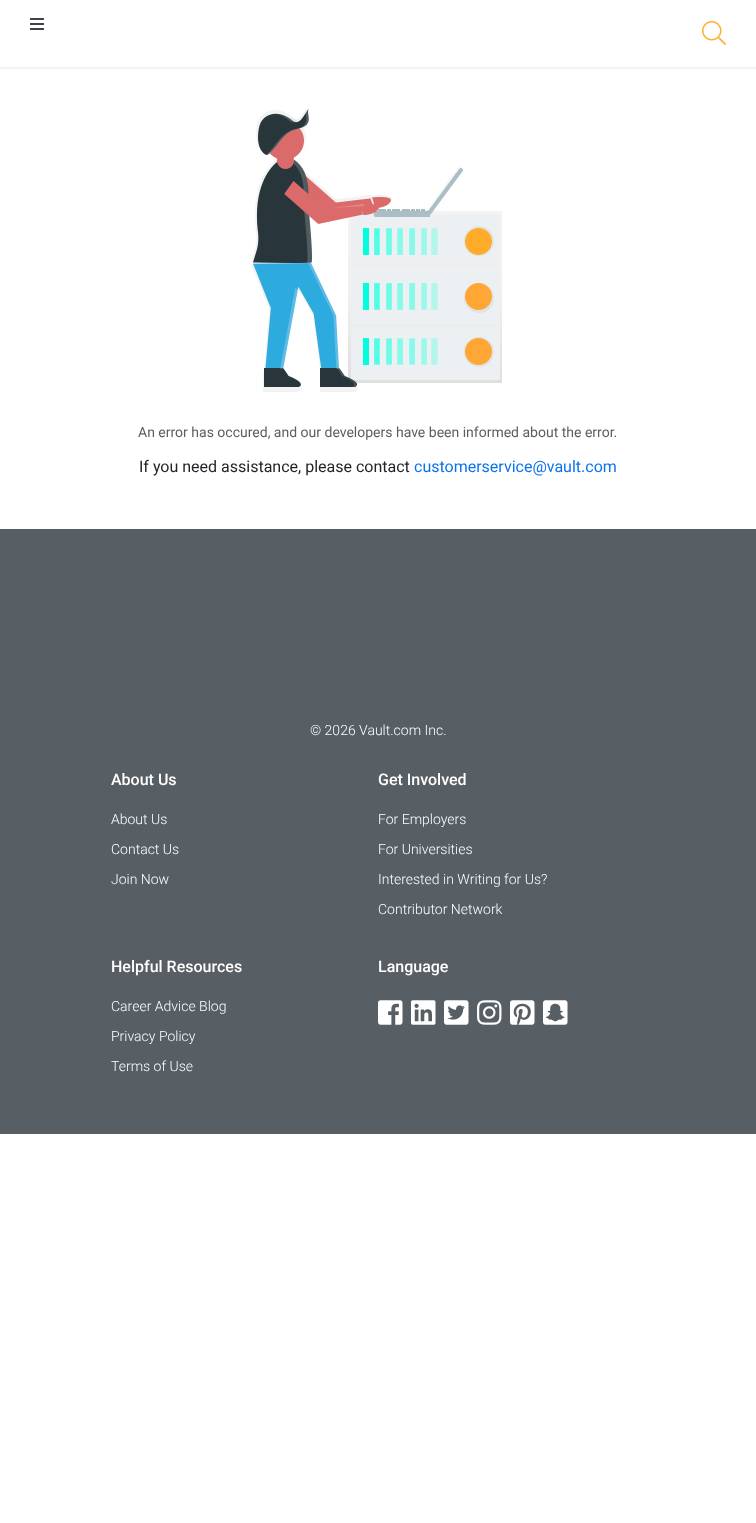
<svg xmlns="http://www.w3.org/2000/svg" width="756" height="1523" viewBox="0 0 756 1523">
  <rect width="100%" height="100%" fill="#ffffff"/>
  <rect x="0" y="68" width="756" height="1" fill="#f0f1f1"/>
  <rect x="0" y="67" width="756" height="1" fill="#f6f6f5"/>
  <image x="30" y="18" width="14" height="12" href="img1.png"/>
  <image x="702" y="21" width="24" height="24" href="img2.png"/>
  <image x="252" y="109" width="250" height="283" href="img3.png"/>
  <text x="138" y="437" font-family="Roboto" font-size="14" fill="#585f64">An error has occured, and our developers have been informed about the error.</text>
  <text x="139" y="472" font-family="Roboto" font-size="16" fill="#212529">If you need assistance, please contact</text>
  <text x="414" y="472" font-family="Roboto" font-size="16" fill="#0a73eb">customerservice@vault.com</text>
  <rect x="0" y="529" width="756" height="605" fill="#585f64"/>
  <text x="310" y="735" font-family="Roboto" font-size="14" font-weight="300" fill="#ffffff">© 2026 Vault.com Inc.</text>
  <text x="111" y="785" font-family="Roboto" font-size="16" font-weight="500" fill="#ffffff">About Us</text>
  <text x="111" y="824" font-family="Roboto" font-size="14" font-weight="300" fill="#ffffff">About Us</text>
  <text x="111" y="854" font-family="Roboto" font-size="14" font-weight="300" fill="#ffffff">Contact Us</text>
  <text x="111" y="884" font-family="Roboto" font-size="14" font-weight="300" fill="#ffffff">Join Now</text>
  <text x="378" y="785" font-family="Roboto" font-size="16" font-weight="500" fill="#ffffff">Get Involved</text>
  <text x="378" y="824" font-family="Roboto" font-size="14" font-weight="300" fill="#ffffff">For Employers</text>
  <text x="378" y="854" font-family="Roboto" font-size="14" font-weight="300" fill="#ffffff">For Universities</text>
  <text x="378" y="884" font-family="Roboto" font-size="14" font-weight="300" fill="#ffffff">Interested in Writing for Us?</text>
  <text x="378" y="914" font-family="Roboto" font-size="14" font-weight="300" fill="#ffffff">Contributor Network</text>
  <text x="111" y="972" font-family="Roboto" font-size="16" font-weight="500" fill="#ffffff">Helpful Resources</text>
  <text x="111" y="1011" font-family="Roboto" font-size="14" font-weight="300" fill="#ffffff">Career Advice Blog</text>
  <text x="111" y="1041" font-family="Roboto" font-size="14" font-weight="300" fill="#ffffff">Privacy Policy</text>
  <text x="111" y="1071" font-family="Roboto" font-size="14" font-weight="300" fill="#ffffff">Terms of Use</text>
  <text x="378" y="972" font-family="Roboto" font-size="16" font-weight="500" fill="#ffffff">Language</text>
  <image x="378" y="1000" width="25" height="25" href="img4.png"/>
  <image x="411" y="1000" width="25" height="25" href="img5.png"/>
  <image x="444" y="1000" width="25" height="25" href="img6.png"/>
  <image x="477" y="1000" width="25" height="25" href="img7.png"/>
  <image x="510" y="1000" width="25" height="25" href="img8.png"/>
  <image x="543" y="1000" width="25" height="25" href="img9.png"/>
</svg>
